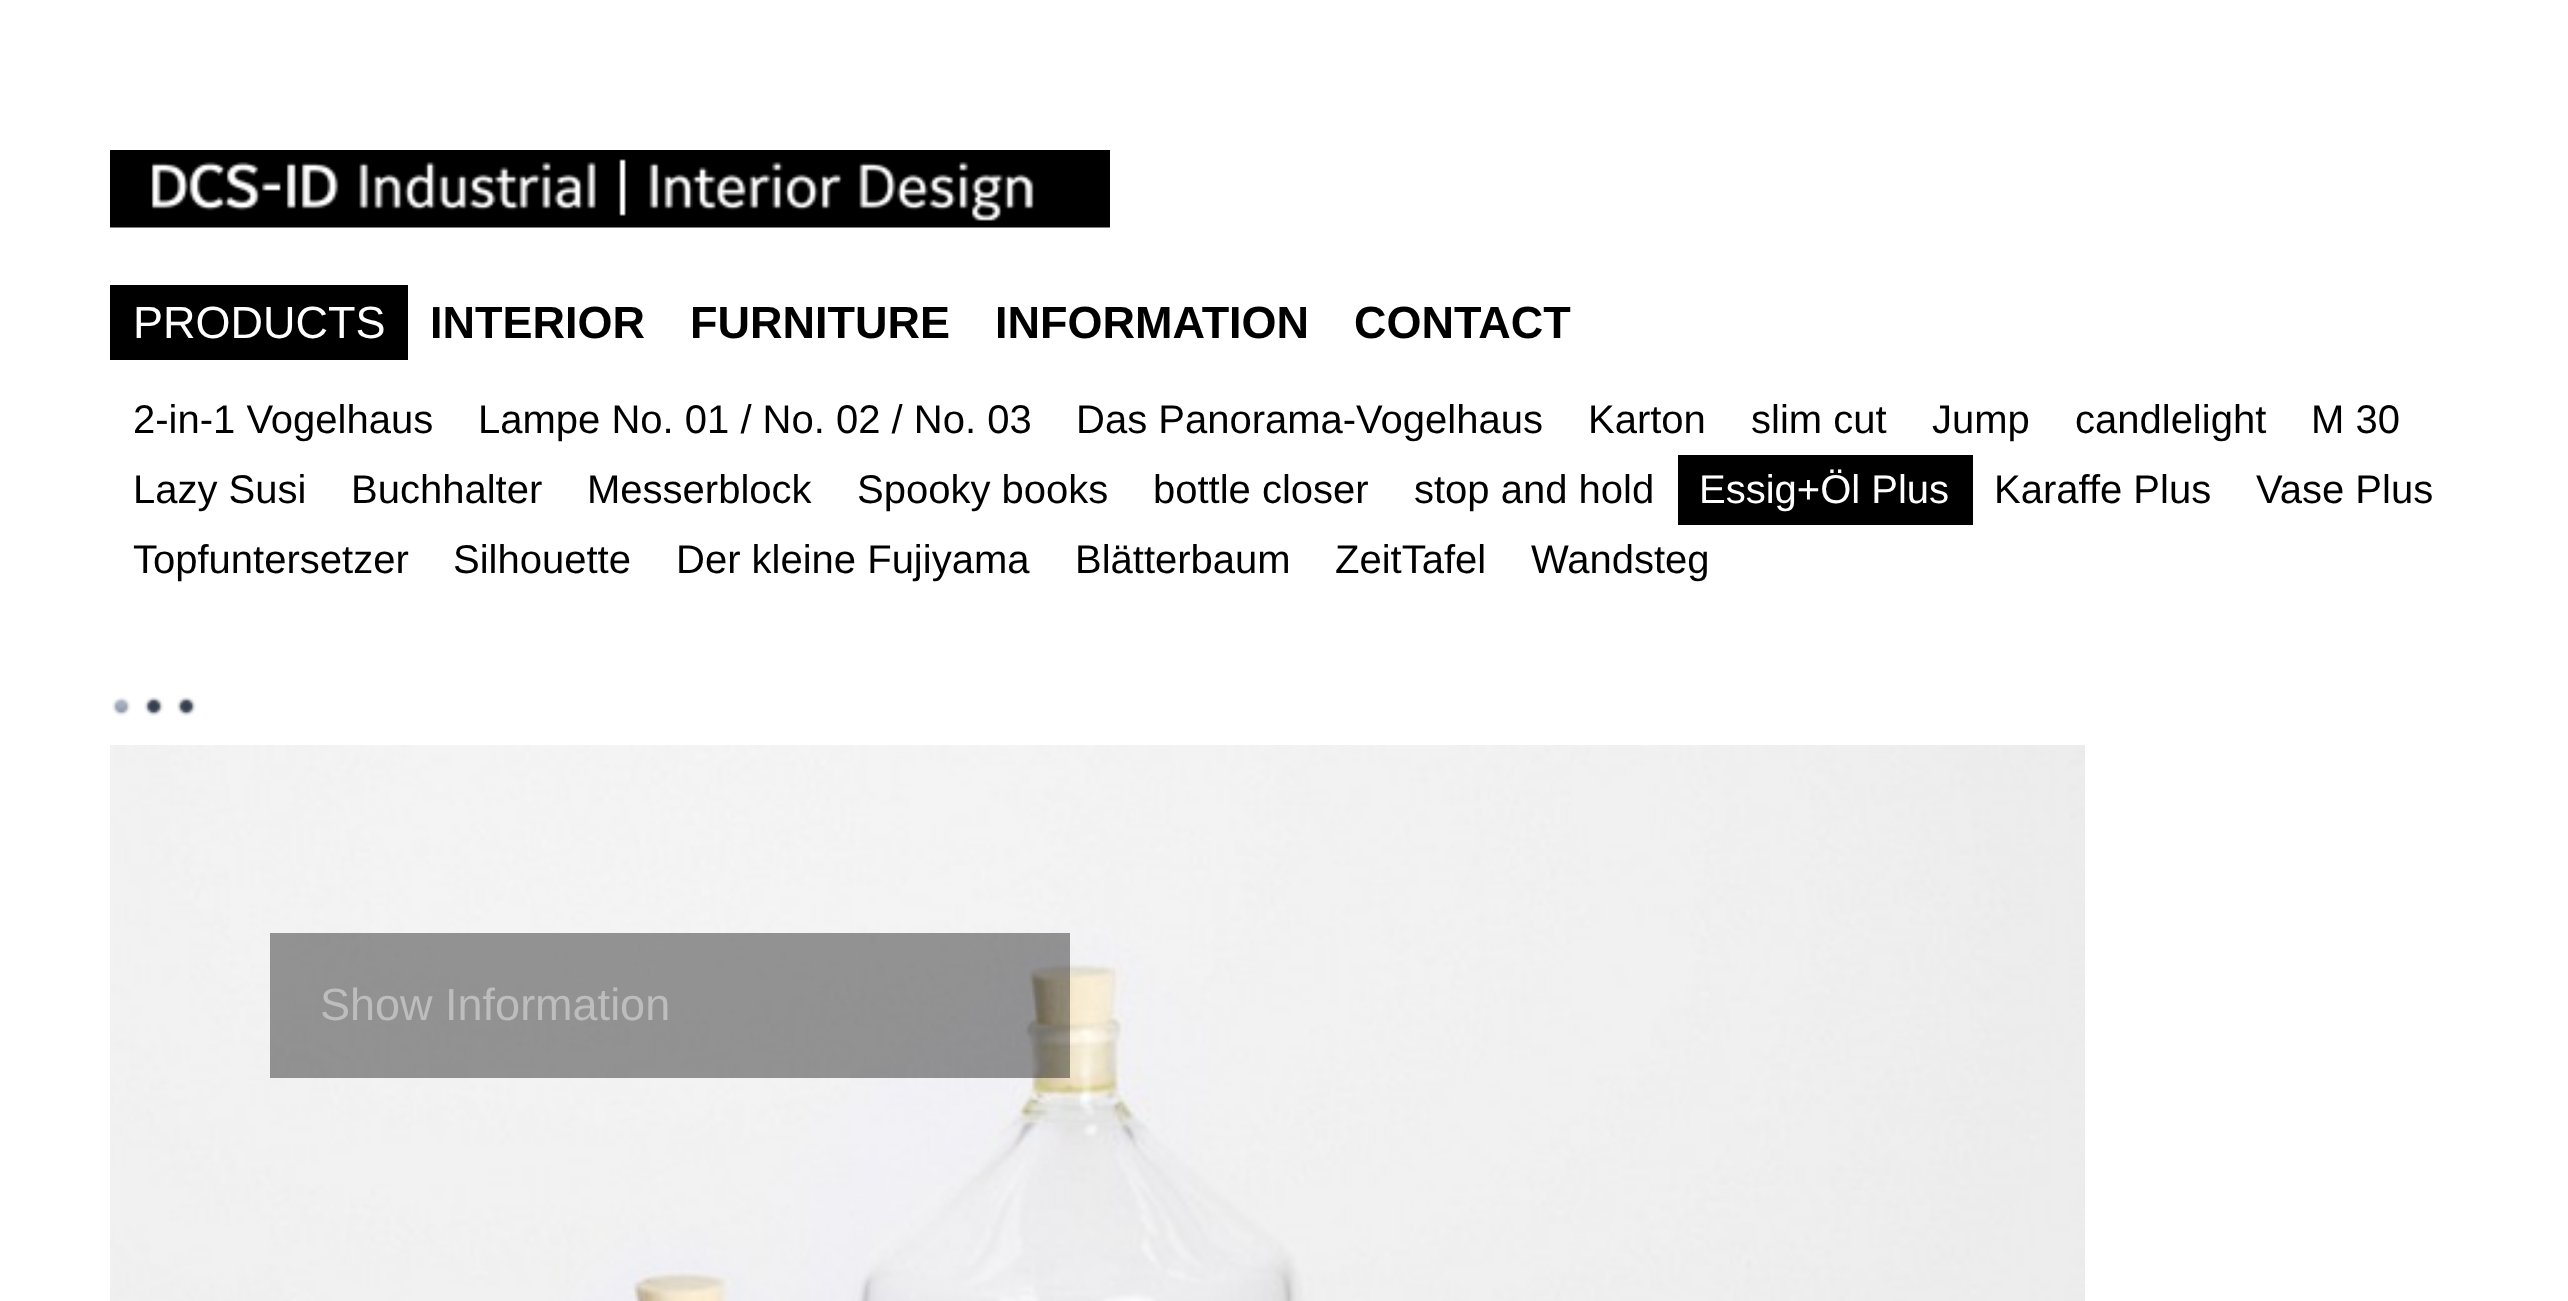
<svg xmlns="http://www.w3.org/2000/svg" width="2568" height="1301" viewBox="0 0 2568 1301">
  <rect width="100%" height="100%" fill="#ffffff"/>
  <image x="110" y="150" width="1000" height="78" href="img1.png"/>
  <rect x="110" y="285" width="298" height="75" fill="#000000"/>
  <text x="133" y="338" font-family="Liberation Sans" font-size="45" fill="#ffffff">PRODUCTS</text>
  <text x="430" y="338" font-family="Liberation Sans" font-size="45" font-weight="bold" fill="#000000">INTERIOR</text>
  <text x="690" y="338" font-family="Liberation Sans" font-size="45" font-weight="bold" fill="#000000">FURNITURE</text>
  <text x="995" y="338" font-family="Liberation Sans" font-size="45" font-weight="bold" fill="#000000">INFORMATION</text>
  <text x="1354" y="338" font-family="Liberation Sans" font-size="45" font-weight="bold" fill="#000000">CONTACT</text>
  <text x="133" y="433" font-family="Liberation Sans" font-size="40" fill="#000000">2-in-1 Vogelhaus</text>
  <text x="478" y="433" font-family="Liberation Sans" font-size="40" fill="#000000">Lampe No. 01 / No. 02 / No. 03</text>
  <text x="1076" y="433" font-family="Liberation Sans" font-size="40" fill="#000000">Das Panorama-Vogelhaus</text>
  <text x="1588" y="433" font-family="Liberation Sans" font-size="40" fill="#000000">Karton</text>
  <text x="1751" y="433" font-family="Liberation Sans" font-size="40" fill="#000000">slim cut</text>
  <text x="1932" y="433" font-family="Liberation Sans" font-size="40" fill="#000000">Jump</text>
  <text x="2075" y="433" font-family="Liberation Sans" font-size="40" fill="#000000">candlelight</text>
  <text x="2311" y="433" font-family="Liberation Sans" font-size="40" fill="#000000">M 30</text>
  <text x="133" y="503" font-family="Liberation Sans" font-size="40" fill="#000000">Lazy Susi</text>
  <text x="351" y="503" font-family="Liberation Sans" font-size="40" fill="#000000">Buchhalter</text>
  <text x="587" y="503" font-family="Liberation Sans" font-size="40" fill="#000000">Messerblock</text>
  <text x="857" y="503" font-family="Liberation Sans" font-size="40" fill="#000000">Spooky books</text>
  <text x="1153" y="503" font-family="Liberation Sans" font-size="40" fill="#000000">bottle closer</text>
  <text x="1414" y="503" font-family="Liberation Sans" font-size="40" fill="#000000">stop and hold</text>
  <rect x="1678" y="455" width="295" height="70" fill="#000000"/>
  <text x="1699" y="503" font-family="Liberation Sans" font-size="40" fill="#ffffff">Essig+Öl Plus</text>
  <text x="1994" y="503" font-family="Liberation Sans" font-size="40" fill="#000000">Karaffe Plus</text>
  <text x="2256" y="503" font-family="Liberation Sans" font-size="40" fill="#000000">Vase Plus</text>
  <text x="133" y="573" font-family="Liberation Sans" font-size="40" fill="#000000">Topfuntersetzer</text>
  <text x="453" y="573" font-family="Liberation Sans" font-size="40" fill="#000000">Silhouette</text>
  <text x="676" y="573" font-family="Liberation Sans" font-size="40" fill="#000000">Der kleine Fujiyama</text>
  <text x="1075" y="573" font-family="Liberation Sans" font-size="40" fill="#000000">Blätterbaum</text>
  <text x="1335" y="573" font-family="Liberation Sans" font-size="40" fill="#000000">ZeitTafel</text>
  <text x="1531" y="573" font-family="Liberation Sans" font-size="40" fill="#000000">Wandsteg</text>
  <image x="110" y="745" width="1975" height="556" href="img2.png"/>
  <image x="112" y="697" width="19" height="19" href="img3.png"/>
  <image x="144" y="697" width="20" height="19" href="img4.png"/>
  <image x="177" y="697" width="19" height="19" href="img5.png"/>
  <rect x="270" y="933" width="800" height="145" fill="#000000" fill-opacity="0.4"/>
  <text x="320" y="1020" font-family="Liberation Sans" font-size="45" fill="#bdbdbd">Show Information</text>
</svg>
